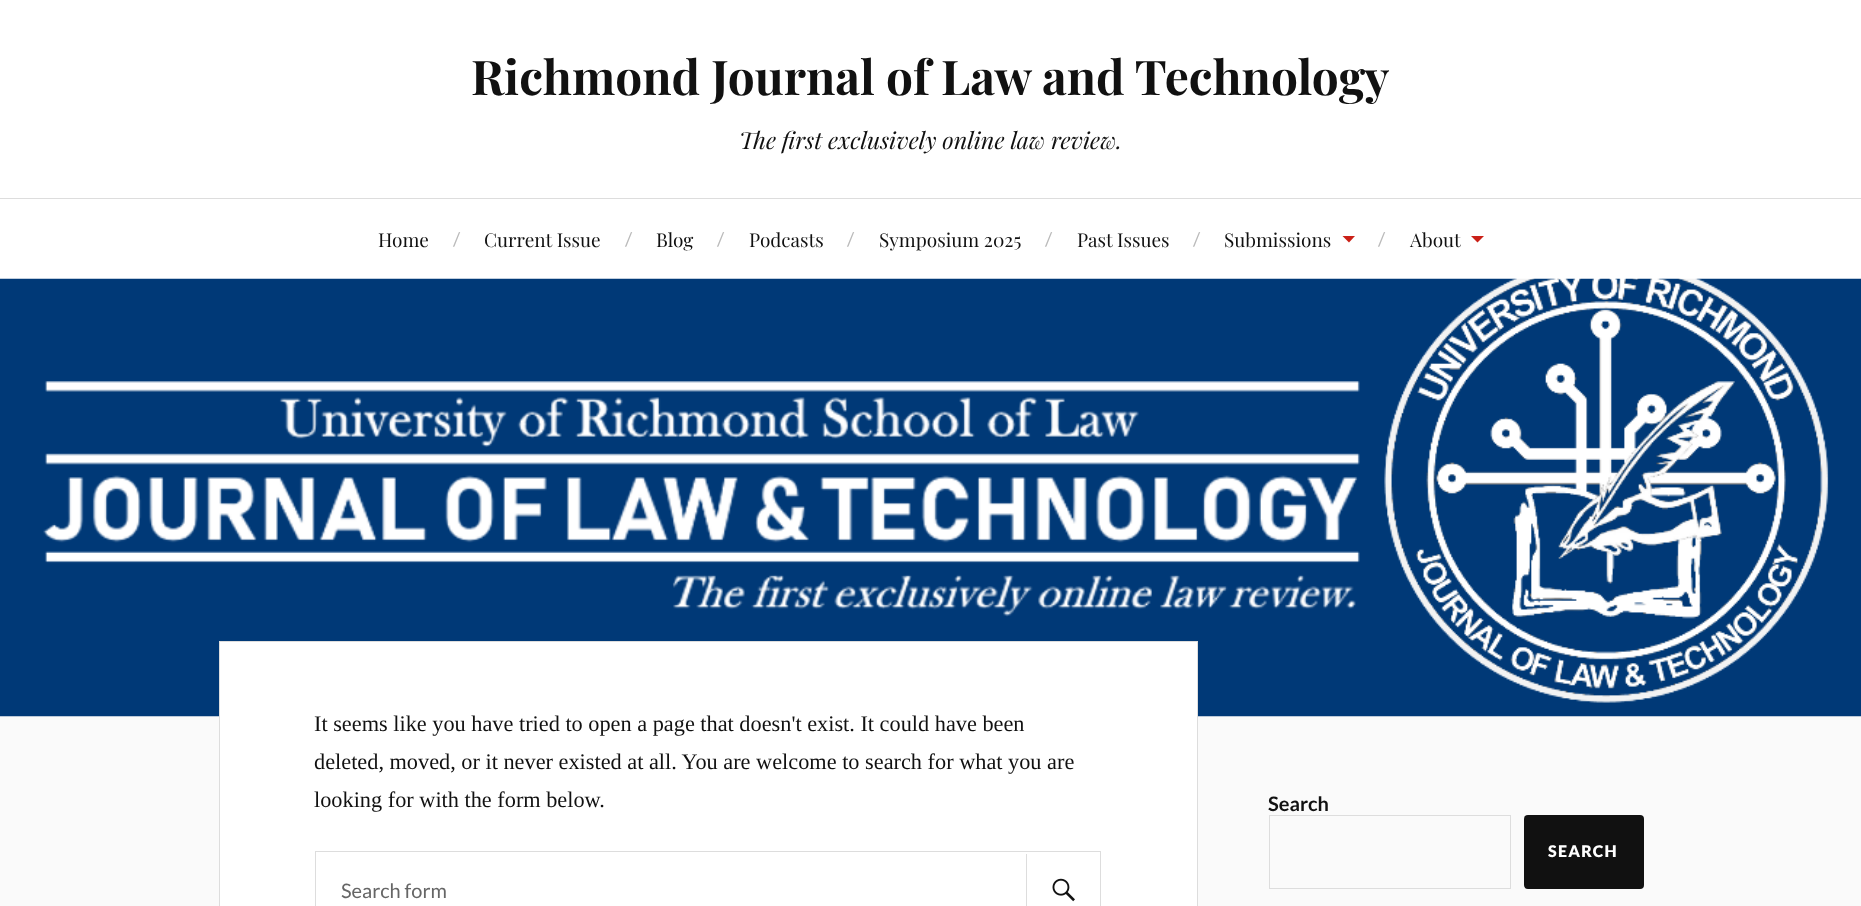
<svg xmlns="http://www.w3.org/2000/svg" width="1861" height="906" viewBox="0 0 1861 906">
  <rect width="100%" height="100%" fill="#fafafa"/>
  <rect x="0" y="0" width="1861" height="198" fill="#ffffff"/>
  <text x="471" y="95" font-family="Playfair Display" font-size="47.8" font-weight="bold" fill="#111111">Richmond Journal of Law and Technology</text>
  <text x="739" y="149" font-family="Playfair Display" font-size="23.4" font-style="italic" fill="#111111">The first exclusively online law review.</text>
  <rect x="0" y="199" width="1861" height="80" fill="#ffffff"/>
  <rect x="0" y="198" width="1861" height="1" fill="#dddddd"/>
  <text x="378" y="247" font-family="Playfair Display" font-size="19" fill="#111111">Home</text>
  <text x="453" y="246" font-family="Lato" font-size="19" fill="#bbbbbb">/</text>
  <text x="484" y="247" font-family="Playfair Display" font-size="19" fill="#111111">Current Issue</text>
  <text x="625" y="246" font-family="Lato" font-size="19" fill="#bbbbbb">/</text>
  <text x="656" y="247" font-family="Playfair Display" font-size="19" fill="#111111">Blog</text>
  <text x="717" y="246" font-family="Lato" font-size="19" fill="#bbbbbb">/</text>
  <text x="749" y="247" font-family="Playfair Display" font-size="19" fill="#111111">Podcasts</text>
  <text x="847" y="246" font-family="Lato" font-size="19" fill="#bbbbbb">/</text>
  <text x="879" y="247" font-family="Playfair Display" font-size="19" fill="#111111">Symposium 2025</text>
  <text x="1045" y="246" font-family="Lato" font-size="19" fill="#bbbbbb">/</text>
  <text x="1077" y="247" font-family="Playfair Display" font-size="19" fill="#111111">Past Issues</text>
  <text x="1193" y="246" font-family="Lato" font-size="19" fill="#bbbbbb">/</text>
  <text x="1224" y="247" font-family="Playfair Display" font-size="19" fill="#111111">Submissions</text>
  <path d="M1342.5 236H1355L1349 242.5Z" fill="#ca2017"/>
  <text x="1378" y="246" font-family="Lato" font-size="19" fill="#bbbbbb">/</text>
  <text x="1410" y="247" font-family="Playfair Display" font-size="19" fill="#111111">About</text>
  <path d="M1471 236H1484L1477.5 242.5Z" fill="#ca2017"/>
  <image x="0" y="278" width="1861" height="439" href="img1.png"/>
  <rect x="219.5" y="641.5" width="978" height="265" fill="#ffffff" stroke="#dddddd"/>
  <text x="314" y="731" font-family="Liberation Serif" font-size="22.3" fill="#111111">It seems like you have tried to open a page that doesn't exist. It could have been</text>
  <text x="314" y="769" font-family="Liberation Serif" font-size="22.3" fill="#111111">deleted, moved, or it never existed at all. You are welcome to search for what you are</text>
  <text x="314" y="807" font-family="Liberation Serif" font-size="22.3" fill="#111111">looking for with the form below.</text>
  <rect x="315.5" y="851.5" width="785" height="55" fill="none" stroke="#dddddd"/>
  <text x="341" y="898" font-family="Lato" font-size="20" fill="#666666">Search form</text>
  <rect x="1026" y="854" width="1" height="52" fill="#dddddd"/>
  <image x="1052" y="878" width="23" height="24" href="img2.png"/>
  <text x="1268" y="811" font-family="Lato" font-size="20" font-weight="bold" fill="#111111">Search</text>
  <rect x="1269.5" y="815.5" width="241" height="73" fill="none" stroke="#dddddd"/>
  <rect x="1524" y="815" width="120" height="74" rx="4" fill="#111111"/>
  <text x="1548" y="857" font-family="Lato" font-size="16" font-weight="900" letter-spacing="1.25" fill="#ffffff">SEARCH</text>
</svg>
